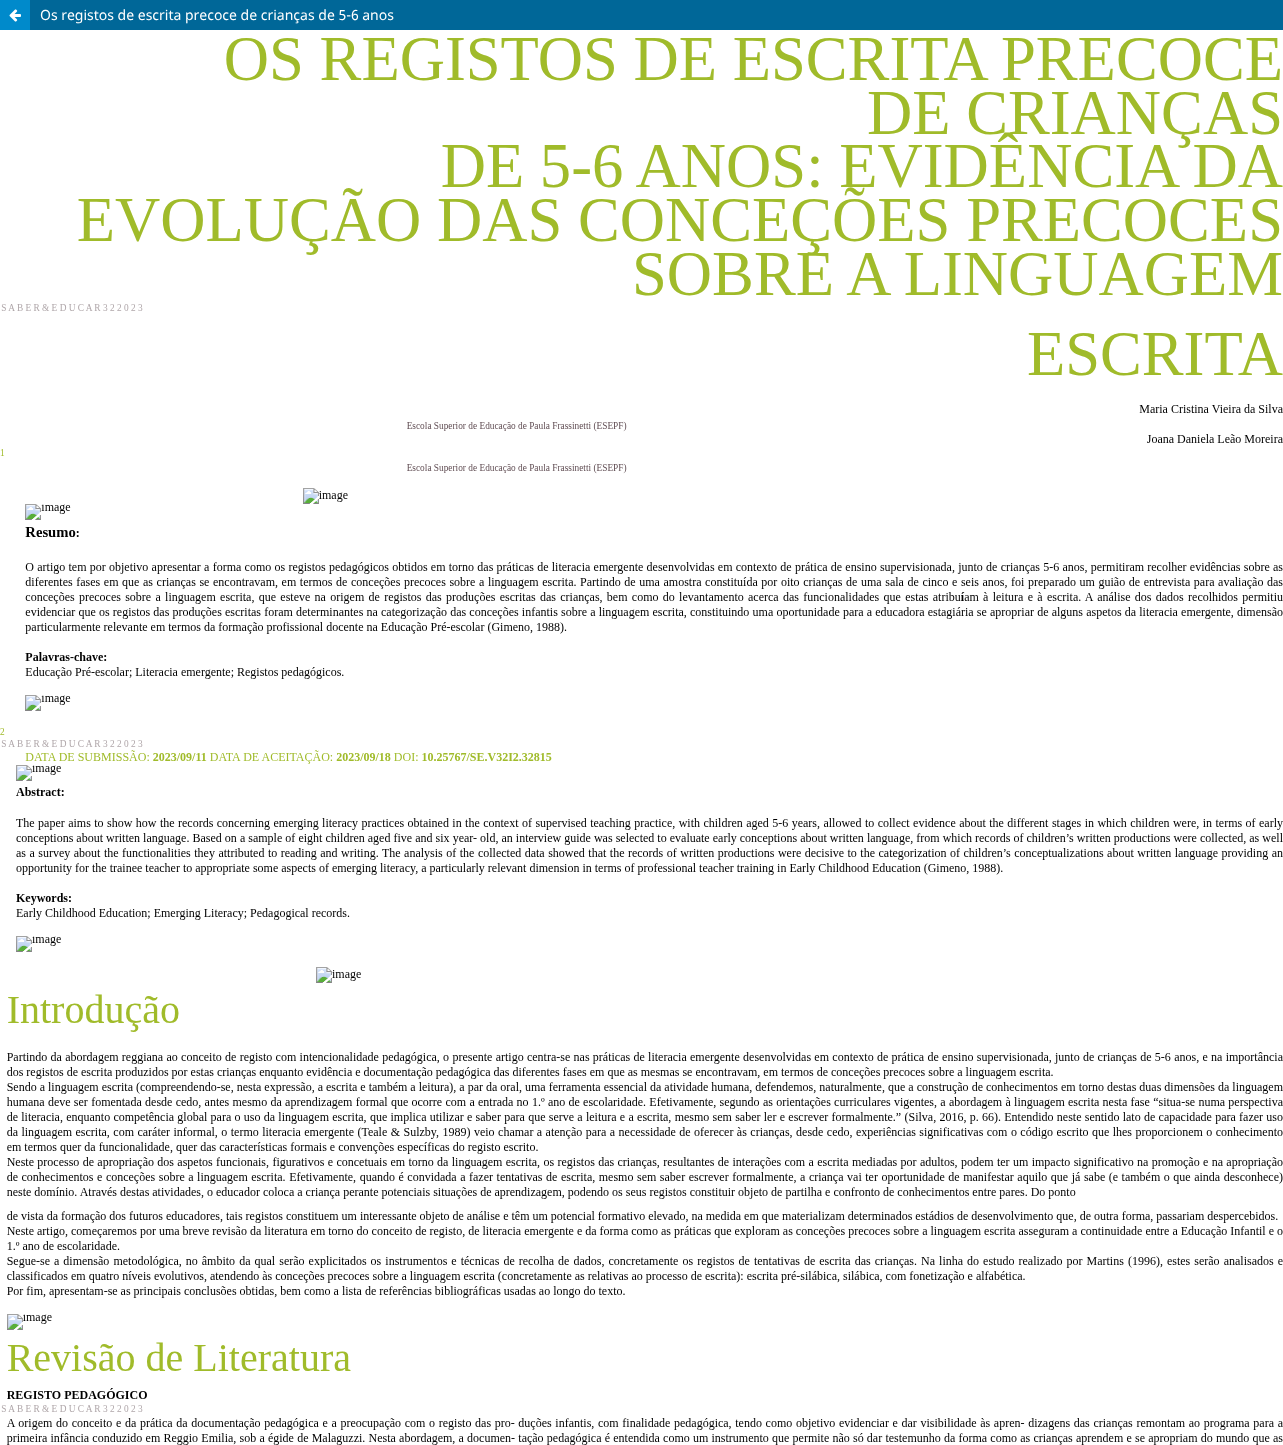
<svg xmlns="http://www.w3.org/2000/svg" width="1283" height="1445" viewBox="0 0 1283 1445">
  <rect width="100%" height="100%" fill="#ffffff"/>
  <rect x="30" y="0" width="1253" height="30" fill="#006798"/>
  <rect x="0" y="0" width="30" height="30" fill="#008acb"/>
  <image x="9" y="9" width="12" height="13" href="img1.png"/>
  <text x="40" y="20" font-family="Noto Sans" font-size="14" fill="#ffffff">Os registos de escrita precoce de crianças de 5-6 anos</text>
  <image x="0" y="38" width="1283" height="1407" href="img2.png"/>
</svg>
